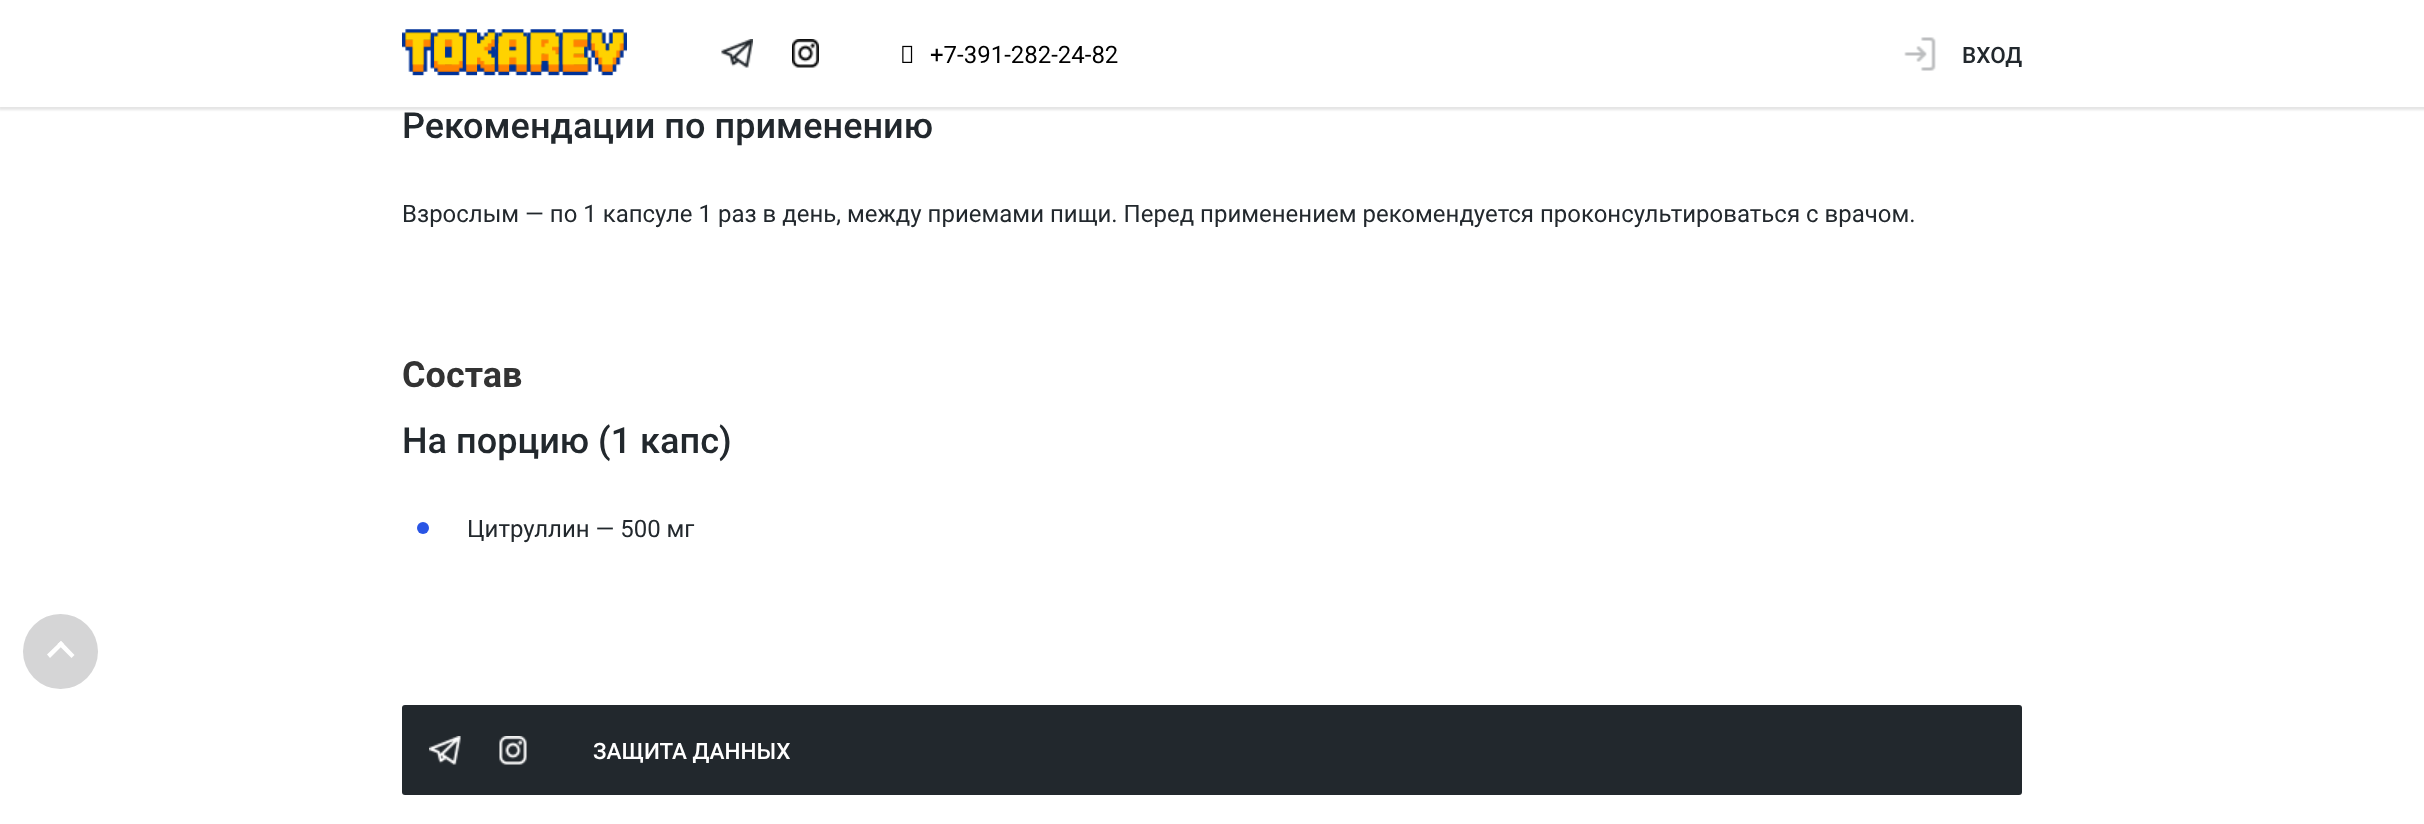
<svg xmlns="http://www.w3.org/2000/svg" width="2424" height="824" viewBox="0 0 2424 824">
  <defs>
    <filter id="blur1" x="-50%" y="-200%" width="200%" height="500%"><feGaussianBlur stdDeviation="1"/></filter>
  </defs>
  <rect width="100%" height="100%" fill="#ffffff"/>
  <rect x="-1" y="0" width="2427" height="110" fill="#000000" fill-opacity="0.1" filter="url(#blur1)"/>
  <rect x="0" y="0" width="2424" height="107" fill="#ffffff"/>
  <image x="402" y="29" width="225" height="47" href="img1.png"/>
  <image x="721" y="39" width="32" height="29" href="img2.png"/>
  <image x="792" y="39" width="27" height="29" href="img3.png"/>
  <image x="902" y="45" width="11" height="18" href="img4.png"/>
  <text x="930" y="63" font-family="Roboto" font-size="24" fill="#000000">+7-391-282-24-82</text>
  <image x="1904" y="37" width="32" height="34" href="img5.png"/>
  <text x="1962" y="63" font-family="Roboto" font-size="22.5" font-weight="500" fill="#22282d">ВХОД</text>
  <text x="402" y="138" font-family="Roboto" font-size="36" font-weight="500" fill="#22282d">Рекомендации по применению</text>
  <text x="402" y="222" font-family="Roboto" font-size="24" fill="#22282d">Взрослым — по 1 капсуле 1 раз в день, между приемами пищи. Перед применением рекомендуется проконсультироваться с врачом.</text>
  <text x="402" y="387" font-family="Roboto" font-size="36" font-weight="bold" fill="#333333">Состав</text>
  <text x="402" y="453" font-family="Roboto" font-size="36" font-weight="500" fill="#22282d">На порцию (1 капс)</text>
  <circle cx="423" cy="528" r="6" fill="#2955e5"/>
  <text x="467" y="537" font-family="Roboto" font-size="24" fill="#22282d">Цитруллин — 500 мг</text>
  <circle cx="60.5" cy="651.5" r="37.5" fill="#e9e9ea"/>
  <circle cx="60.5" cy="651.5" r="37.5" fill="#23262a" fill-opacity="0.1"/>
  <path d="M61 641L74.5 655L71.5 658L57.5 644Z" fill="#ffffff"/>
  <path d="M61 641L64 644L50 658L47 654.5Z" fill="#ffffff"/>
  <rect x="402" y="705" width="1620" height="90" rx="3" fill="#22282d"/>
  <image x="429" y="736" width="32" height="29" href="img6.png"/>
  <image x="499" y="736" width="28" height="29" href="img7.png"/>
  <text x="593" y="759" font-family="Roboto" font-size="22.5" font-weight="500" fill="#ffffff">ЗАЩИТА ДАННЫХ</text>
</svg>
